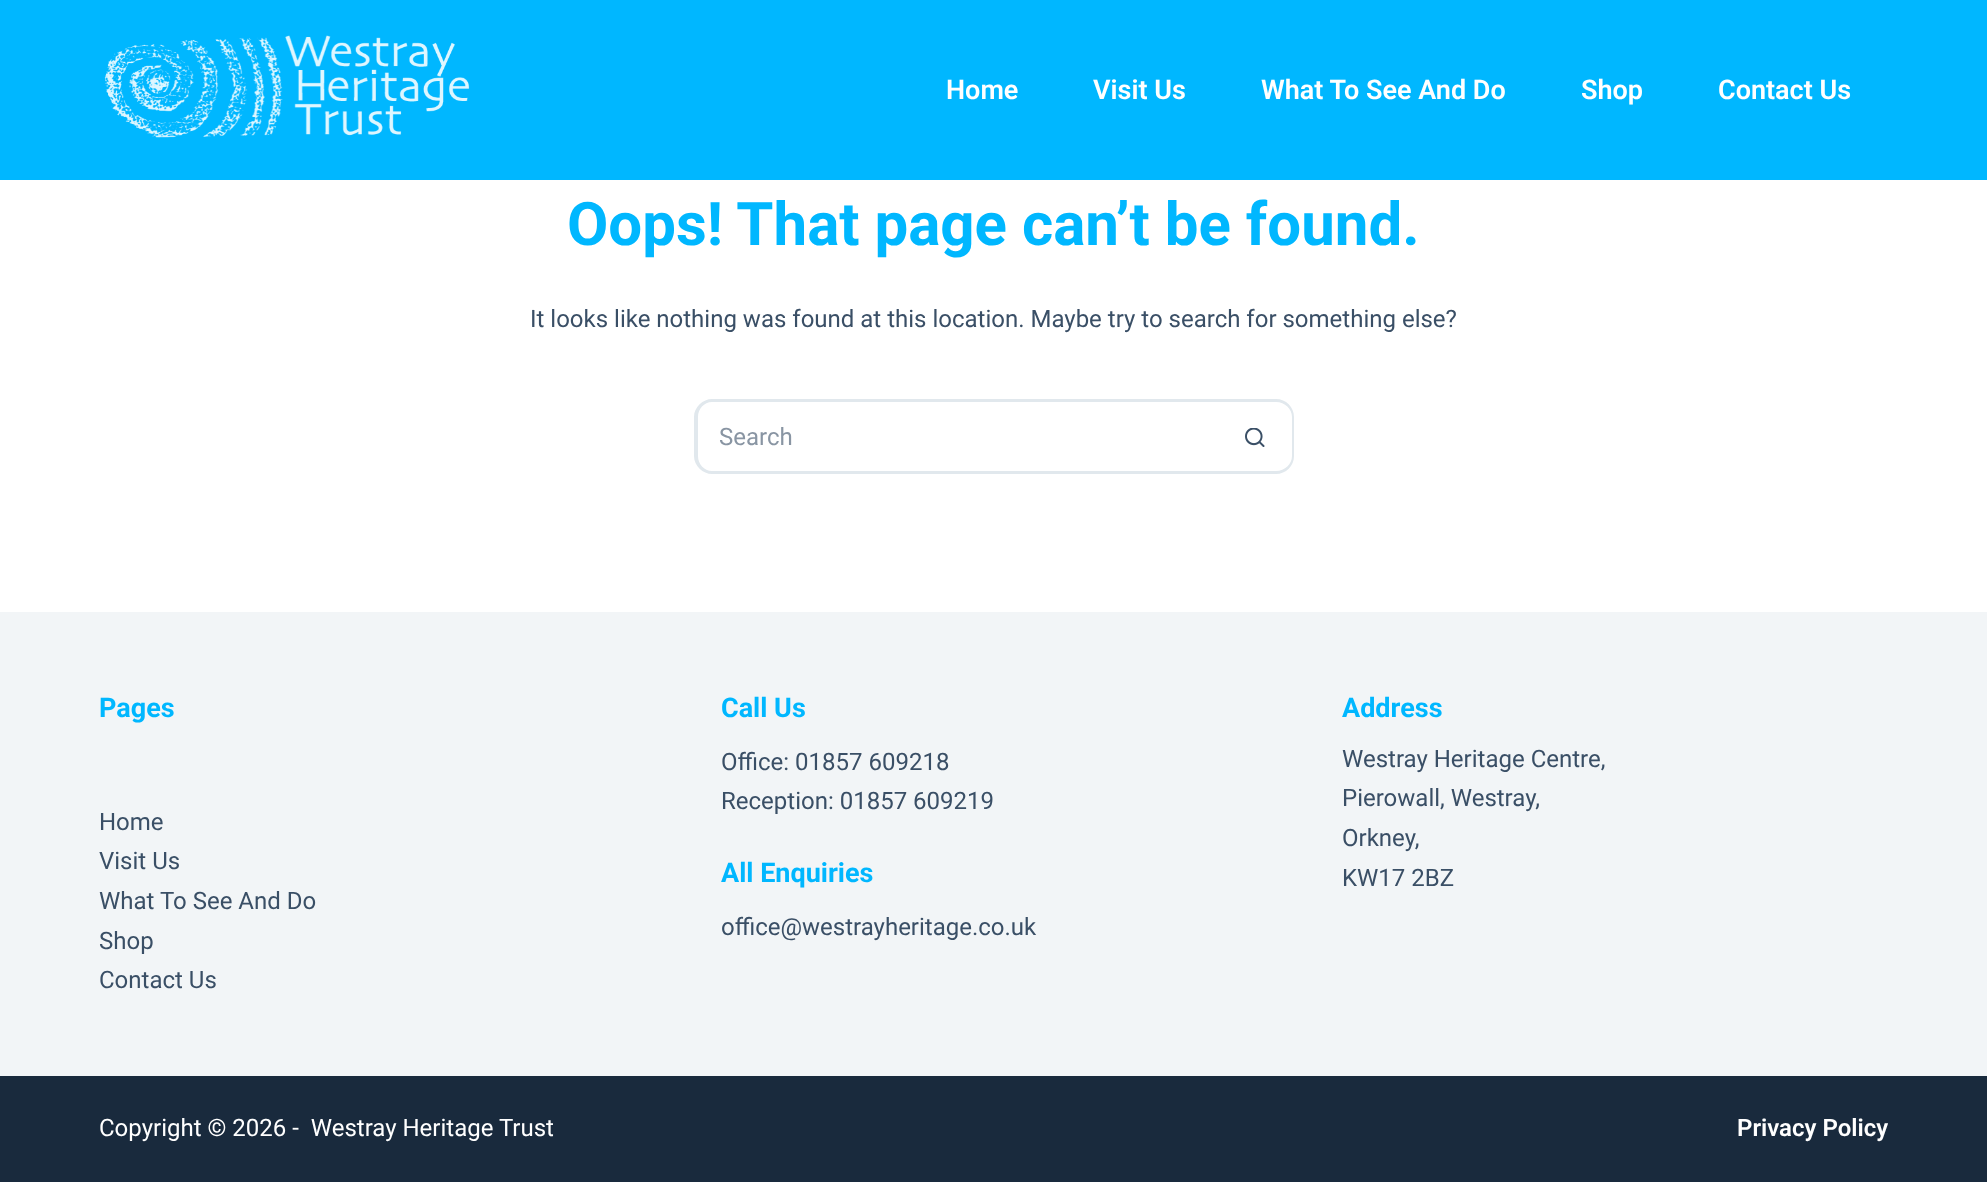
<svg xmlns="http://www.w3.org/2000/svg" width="1987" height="1182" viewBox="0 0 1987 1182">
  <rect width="100%" height="100%" fill="#ffffff"/>
  <rect x="0" y="0" width="1987" height="180" fill="#00b7ff"/>
  <image x="104" y="35" width="366" height="103" href="img1.png"/>
  <text x="946" y="99" font-family="Roboto" font-size="27" font-weight="600" fill="#ffffff">Home</text>
  <text x="1093" y="99" font-family="Roboto" font-size="27" font-weight="600" fill="#ffffff">Visit Us</text>
  <text x="1261" y="99" font-family="Roboto" font-size="27" font-weight="600" fill="#ffffff">What To See And Do</text>
  <text x="1581" y="99" font-family="Roboto" font-size="27" font-weight="600" fill="#ffffff">Shop</text>
  <text x="1718" y="99" font-family="Roboto" font-size="27" font-weight="600" fill="#ffffff">Contact Us</text>
  <text x="567" y="245" font-family="Roboto" font-size="60" font-weight="bold" fill="#00b7ff">Oops! That page can’t be found.</text>
  <text x="530" y="327" font-family="Roboto" font-size="24" fill="#3a4f66">It looks like nothing was found at this location. Maybe try to search for something else?</text>
  <path d="M712 399H1220V474H712C703 474 694 466 694 456V417C694 407 703 399 712 399ZM712 402H1220V471H712C704 471 698 464 698 456V417C698 409 704 402 712 402Z" fill="#e1e8ed" fill-rule="evenodd"/>
  <text x="719" y="445" font-family="Roboto" font-size="24" fill="#8995a3">Search</text>
  <path d="M1220 399H1276C1286 399 1294 407 1294 417V456C1294 466 1286 474 1276 474H1220ZM1220 402H1276C1285 402 1292 409 1292 417V456C1292 464 1285 471 1276 471H1220Z" fill="#e1e8ed" fill-rule="evenodd"/>
  <image x="1245" y="428" width="20" height="19" href="img2.png"/>
  <rect x="0" y="612" width="1987" height="464" fill="#f2f5f7"/>
  <text x="99" y="717" font-family="Roboto" font-size="27" font-weight="bold" fill="#00b7ff">Pages</text>
  <text x="99" y="830" font-family="Roboto" font-size="24" fill="#3a4f66">Home</text>
  <text x="99" y="869" font-family="Roboto" font-size="24" fill="#3a4f66">Visit Us</text>
  <text x="99" y="909" font-family="Roboto" font-size="24" fill="#3a4f66">What To See And Do</text>
  <text x="99" y="949" font-family="Roboto" font-size="24" fill="#3a4f66">Shop</text>
  <text x="99" y="988" font-family="Roboto" font-size="24" fill="#3a4f66">Contact Us</text>
  <text x="721" y="717" font-family="Roboto" font-size="27" font-weight="bold" fill="#00b7ff">Call Us</text>
  <text x="721" y="770" font-family="Roboto" font-size="24" fill="#3a4f66">Office: 01857 609218</text>
  <text x="721" y="809" font-family="Roboto" font-size="24" fill="#3a4f66">Reception: 01857 609219</text>
  <text x="721" y="882" font-family="Roboto" font-size="27" font-weight="bold" fill="#00b7ff">All Enquiries</text>
  <text x="721" y="935" font-family="Roboto" font-size="24" fill="#3a4f66">office@westrayheritage.co.uk</text>
  <text x="1342" y="717" font-family="Roboto" font-size="27" font-weight="bold" fill="#00b7ff">Address</text>
  <text x="1342" y="767" font-family="Roboto" font-size="24" fill="#3a4f66">Westray Heritage Centre,</text>
  <text x="1342" y="806" font-family="Roboto" font-size="24" fill="#3a4f66">Pierowall, Westray,</text>
  <text x="1342" y="846" font-family="Roboto" font-size="24" fill="#3a4f66">Orkney,</text>
  <text x="1342" y="886" font-family="Roboto" font-size="24" fill="#3a4f66">KW17 2BZ</text>
  <rect x="0" y="1076" width="1987" height="106" fill="#192a3d"/>
  <text x="99" y="1136" font-family="Roboto" font-size="24" fill="#ffffff" xml:space="preserve">Copyright © 2026 -  Westray Heritage Trust</text>
  <text x="1737" y="1136" font-family="Roboto" font-size="24" font-weight="600" fill="#ffffff">Privacy Policy</text>
</svg>
